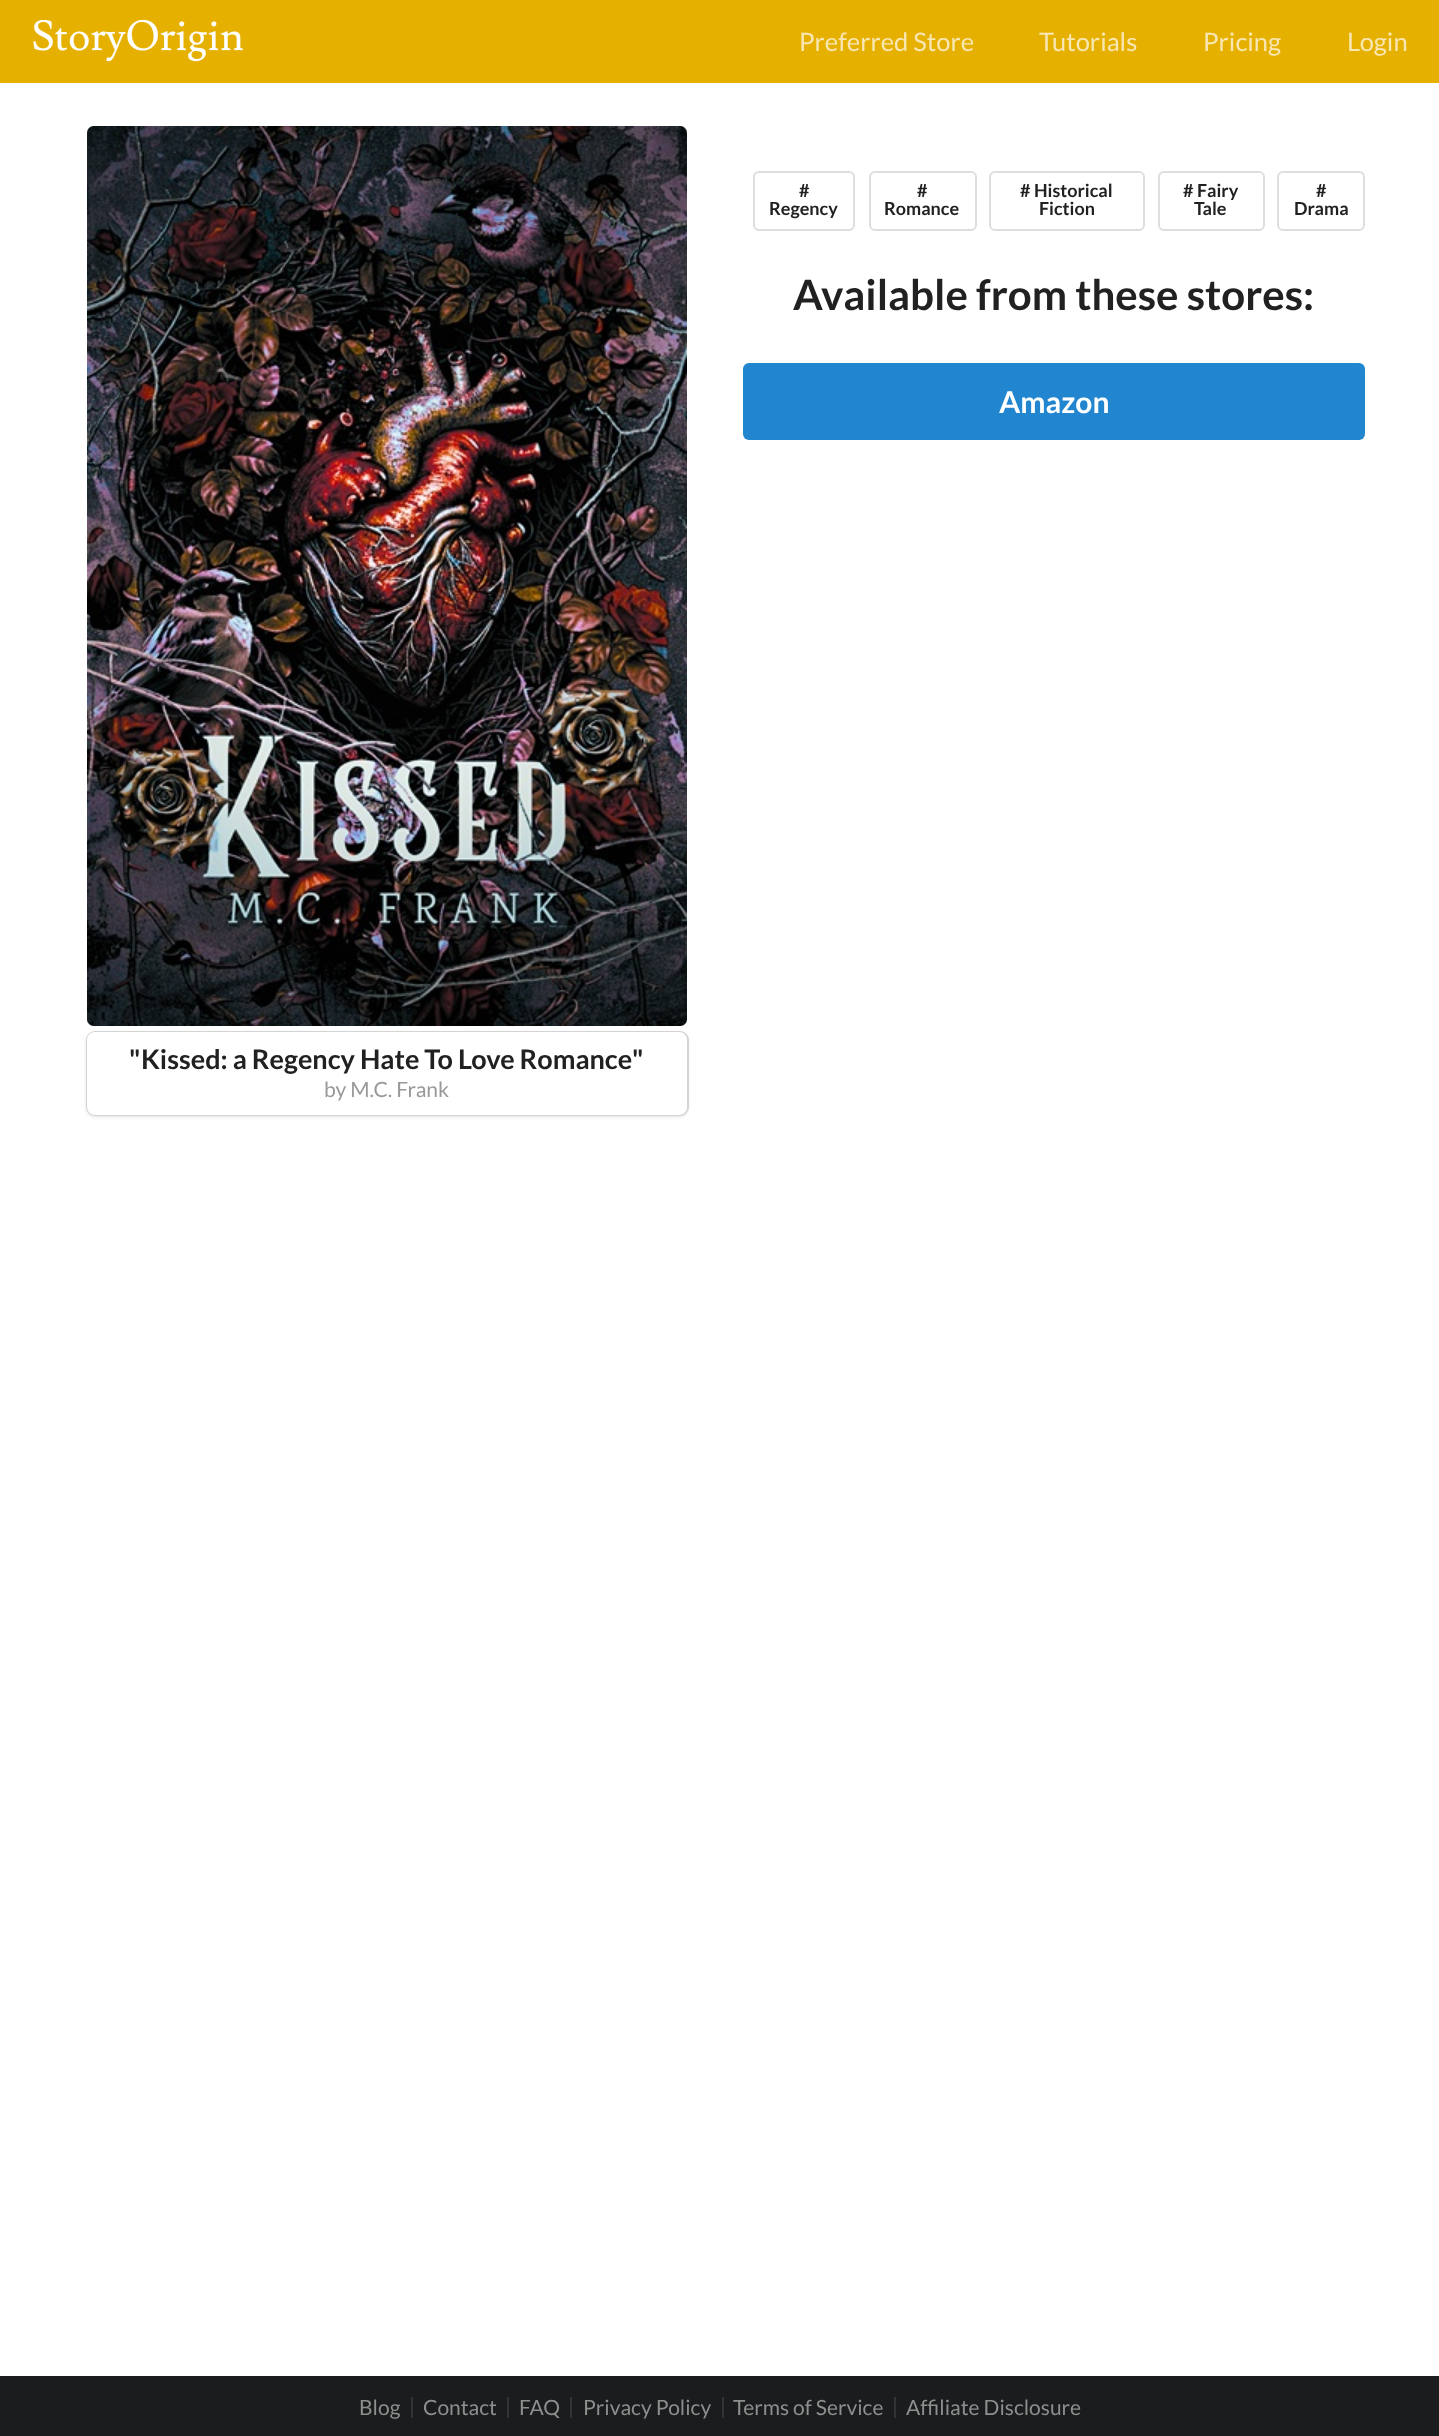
<svg xmlns="http://www.w3.org/2000/svg" width="1439" height="2436" viewBox="0 0 1439 2436">
  <defs>
    <filter id="blur1" x="-50%" y="-200%" width="200%" height="500%"><feGaussianBlur stdDeviation="2"/></filter>
  </defs>
  <rect width="100%" height="100%" fill="#ffffff"/>
  <rect x="0" y="0" width="1439" height="83" fill="#e6b000"/>
  <image x="33" y="20" width="210" height="42" href="img1.png"/>
  <text x="799" y="51" font-family="Lato" font-size="25.5" fill="#f8e7b3">Preferred Store</text>
  <text x="1039" y="51" font-family="Lato" font-size="25.5" fill="#f8e7b3">Tutorials</text>
  <text x="1203" y="51" font-family="Lato" font-size="25.5" fill="#f8e7b3">Pricing</text>
  <text x="1347" y="51" font-family="Lato" font-size="25.5" fill="#f8e7b3">Login</text>
  <rect x="754" y="172" width="100" height="58" rx="5" fill="none" stroke="#dedede" stroke-width="2"/>
  <text x="799" y="197" font-family="Lato" font-size="18" font-weight="bold" fill="#212121">#</text>
  <text x="769" y="215" font-family="Lato" font-size="18" font-weight="bold" fill="#212121">Regency</text>
  <rect x="870" y="172" width="106" height="58" rx="5" fill="none" stroke="#dedede" stroke-width="2"/>
  <text x="917" y="197" font-family="Lato" font-size="18" font-weight="bold" fill="#212121">#</text>
  <text x="884" y="215" font-family="Lato" font-size="18" font-weight="bold" fill="#212121">Romance</text>
  <rect x="990" y="172" width="154" height="58" rx="5" fill="none" stroke="#dedede" stroke-width="2"/>
  <text x="1020" y="197" font-family="Lato" font-size="18" font-weight="bold" fill="#212121"># Historical</text>
  <text x="1039" y="215" font-family="Lato" font-size="18" font-weight="bold" fill="#212121">Fiction</text>
  <rect x="1159" y="172" width="105" height="58" rx="5" fill="none" stroke="#dedede" stroke-width="2"/>
  <text x="1183" y="197" font-family="Lato" font-size="18" font-weight="bold" fill="#212121"># Fairy</text>
  <text x="1194" y="215" font-family="Lato" font-size="18" font-weight="bold" fill="#212121">Tale</text>
  <rect x="1278" y="172" width="86" height="58" rx="5" fill="none" stroke="#dedede" stroke-width="2"/>
  <text x="1316" y="197" font-family="Lato" font-size="18" font-weight="bold" fill="#212121">#</text>
  <text x="1294" y="215" font-family="Lato" font-size="18" font-weight="bold" fill="#212121">Drama</text>
  <text x="793" y="310" font-family="Lato" font-size="42" font-weight="bold" fill="#212121">Available from these stores:</text>
  <rect x="743" y="363" width="622" height="77" rx="6" fill="#2185d0"/>
  <text x="999" y="413" font-family="Lato" font-size="30" font-weight="bold" fill="#ffffff">Amazon</text>
  <image x="87" y="126" width="600" height="900" href="img2.png"/>
  <rect x="87" y="1032" width="601" height="83" rx="8" fill="none" stroke="#d4d4d5" stroke-width="2"/>
  <rect x="87" y="1034" width="600" height="82" rx="8" fill="#d4d4d5" filter="url(#blur1)"/>
  <rect x="87" y="1032" width="600" height="83" rx="8" fill="#ffffff"/>
  <text x="129" y="1069" font-family="Lato" font-size="27" font-weight="bold" fill="#212121">"</text>
  <text x="141" y="1069" word-spacing="-0.25" font-family="Lato" font-size="27" font-weight="bold" fill="#212121">Kissed: a Regency Hate To Love Romance</text>
  <text x="632" y="1069" font-family="Lato" font-size="27" font-weight="bold" fill="#212121">"</text>
  <text x="324" y="1097" font-family="Lato" font-size="21" fill="#999999">by M.C. Frank</text>
  <rect x="0" y="2376" width="1439" height="60" fill="#1b1c1d"/>
  <text x="359" y="2415" font-family="Lato" font-size="21" fill="#8d8e8e">Blog</text>
  <rect x="411" y="2397" width="2" height="21" fill="#323334"/>
  <text x="423" y="2415" font-family="Lato" font-size="21" fill="#8d8e8e">Contact</text>
  <rect x="507" y="2397" width="2" height="21" fill="#323334"/>
  <text x="519" y="2415" font-family="Lato" font-size="21" fill="#8d8e8e">FAQ</text>
  <rect x="570" y="2397" width="2" height="21" fill="#323334"/>
  <text x="583" y="2415" font-family="Lato" font-size="21" fill="#8d8e8e">Privacy Policy</text>
  <rect x="722" y="2397" width="2" height="21" fill="#323334"/>
  <text x="733" y="2415" font-family="Lato" font-size="21" fill="#8d8e8e">Terms of Service</text>
  <rect x="894" y="2397" width="2" height="21" fill="#323334"/>
  <text x="906" y="2415" font-family="Lato" font-size="21" fill="#8d8e8e">Affiliate Disclosure</text>
</svg>
